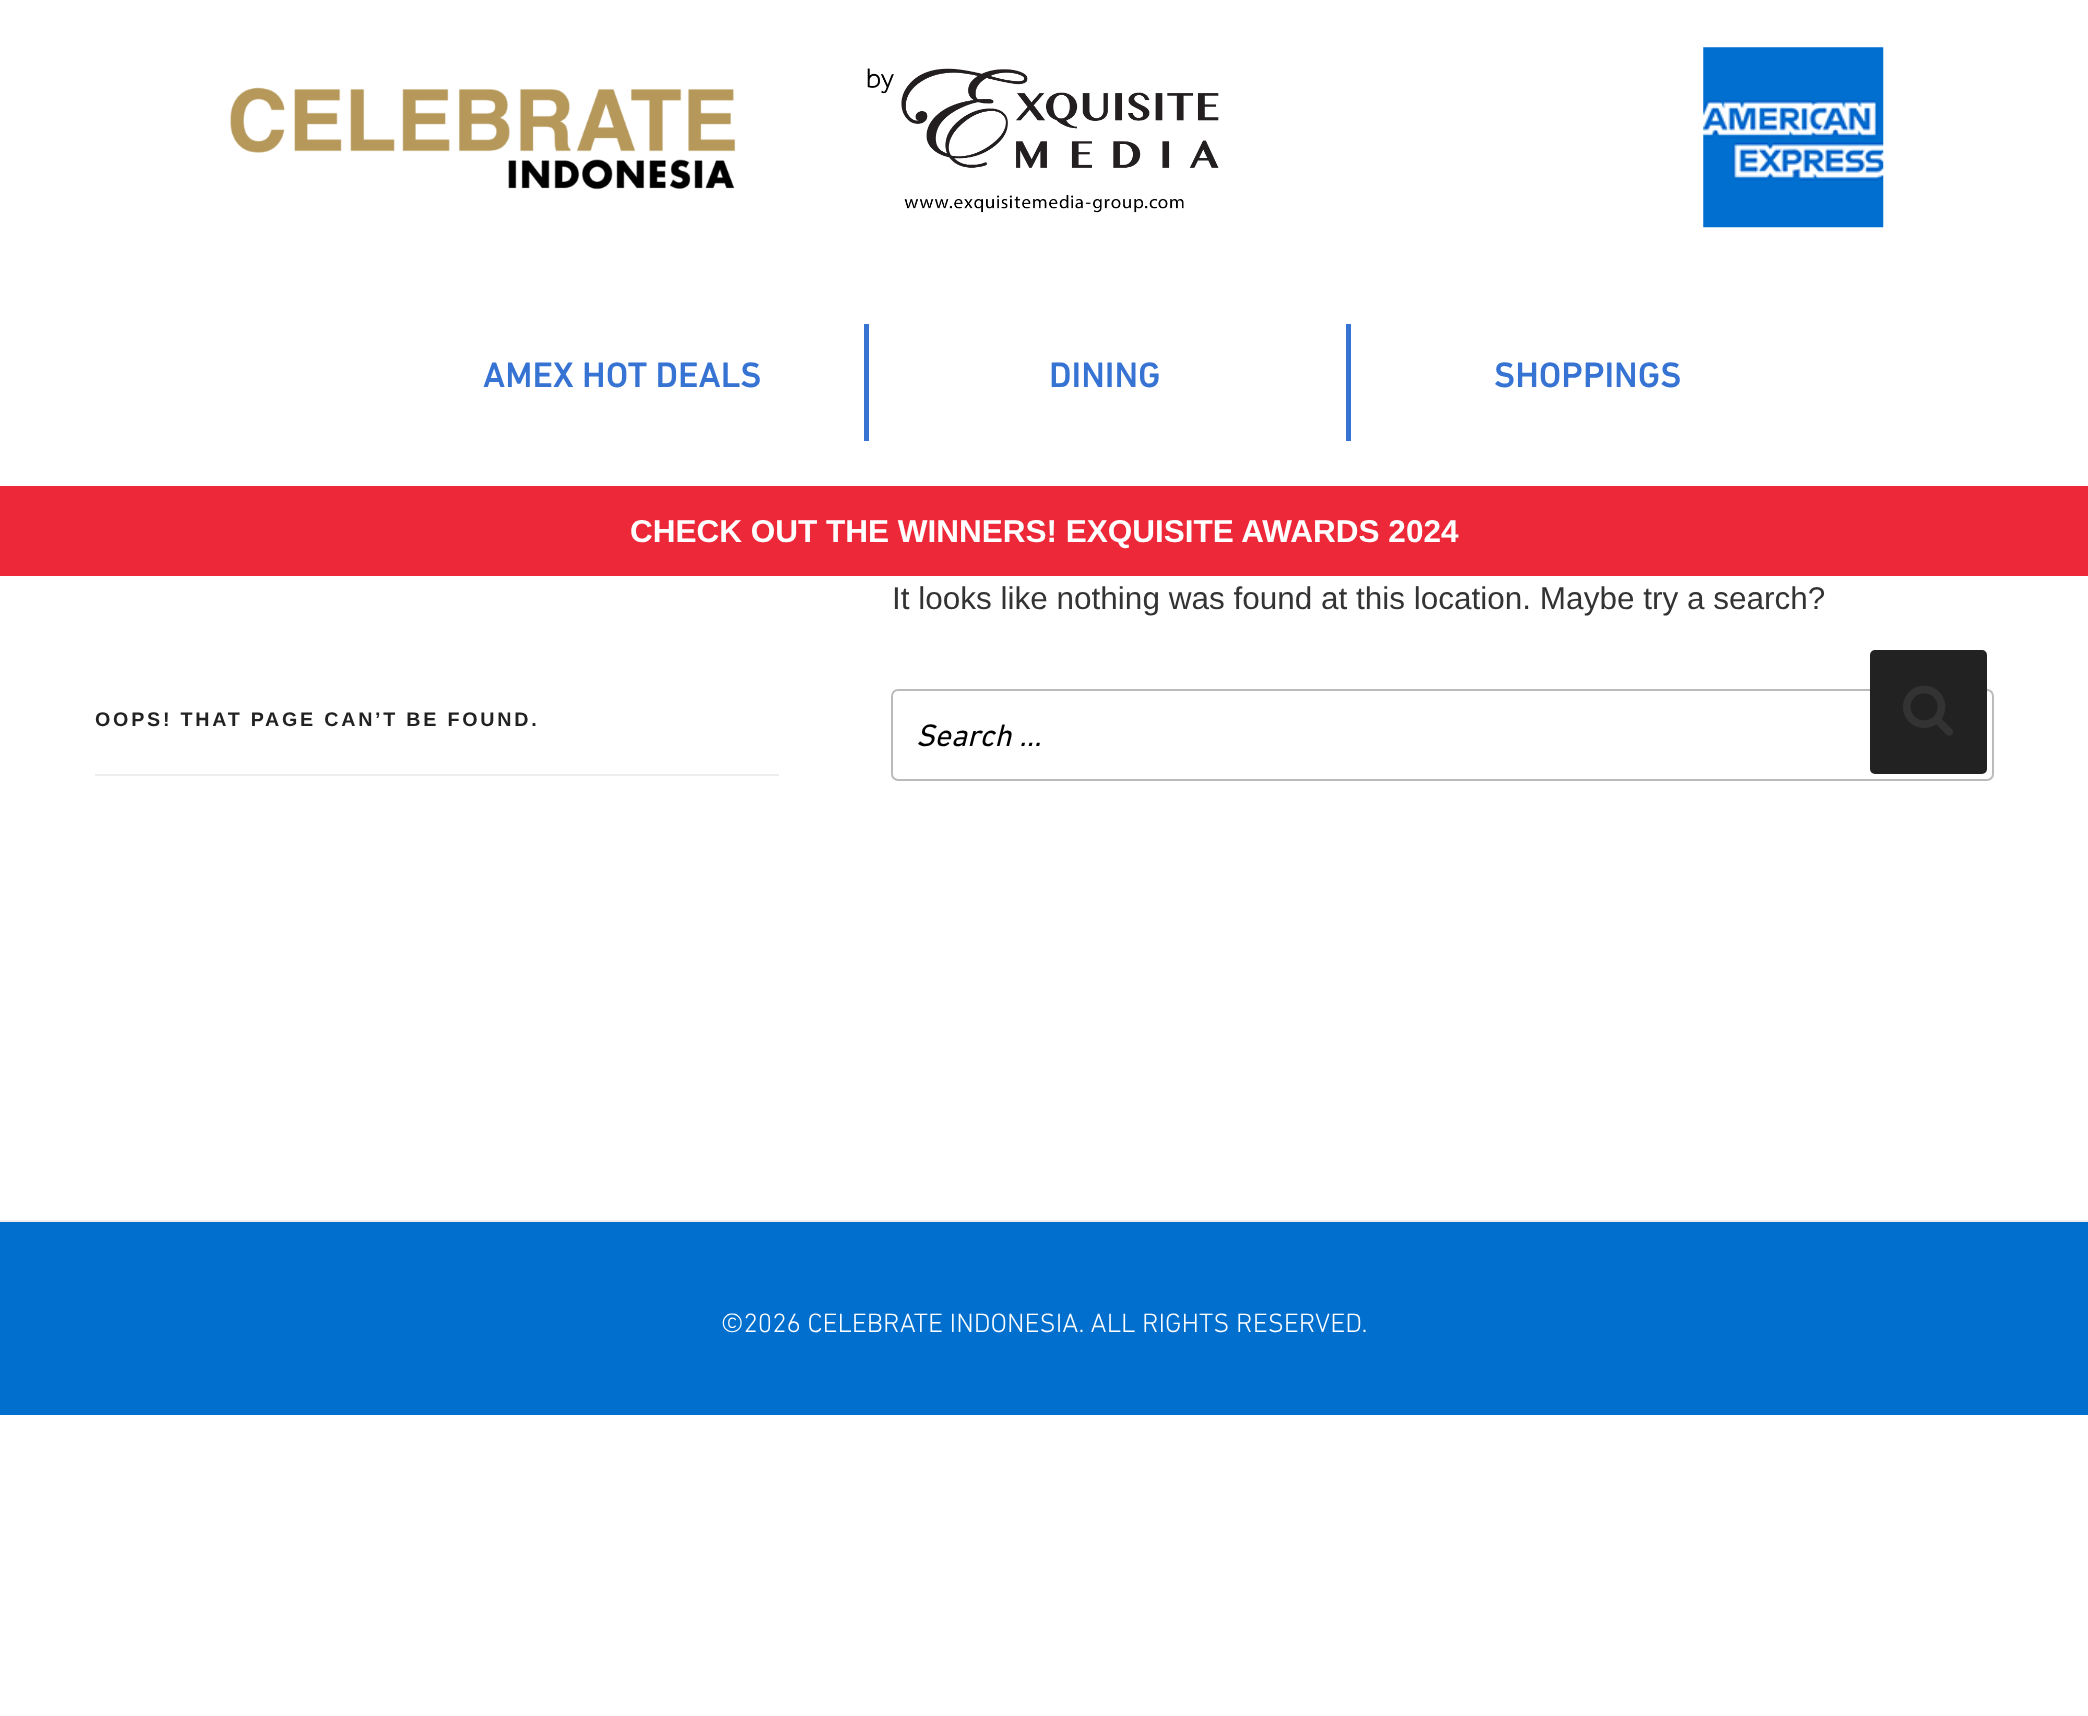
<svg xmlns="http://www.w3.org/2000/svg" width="2088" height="1716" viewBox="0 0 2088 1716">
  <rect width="100%" height="100%" fill="#ffffff"/>
  <image x="230" y="87" width="506" height="103" href="img1.png"/>
  <image x="867" y="68" width="352" height="145" href="img2.png"/>
  <image x="1703" y="47" width="181" height="181" href="img3.png"/>
  <text x="483" y="387" font-family="DIN Next" font-size="36" font-weight="500" fill="#3673d3">AMEX HOT DEALS</text>
  <rect x="864" y="324" width="5" height="117" fill="#3673d3"/>
  <text x="1049" y="387" font-family="DIN Next" font-size="36" font-weight="500" fill="#3673d3">DINING</text>
  <rect x="1346" y="324" width="5" height="117" fill="#3673d3"/>
  <text x="1494" y="387" font-family="DIN Next" font-size="36" font-weight="500" fill="#3673d3">SHOPPINGS</text>
  <rect x="0" y="486" width="2088" height="90" fill="#ed2939"/>
  <text x="630" y="542" font-family="Liberation Sans" font-size="31.5" font-weight="bold" fill="#ffffff">CHECK OUT THE WINNERS! EXQUISITE AWARDS 2024</text>
  <rect x="95" y="774" width="684" height="2" fill="#eeeeee"/>
  <text x="95" y="726" font-family="Liberation Sans" font-size="19.7" font-weight="bold" letter-spacing="2.75" fill="#222222">OOPS! THAT PAGE CAN’T BE FOUND.</text>
  <text x="892" y="609" font-family="Liberation Sans" font-size="31.5" fill="#333333">It looks like nothing was found at this location. Maybe try a search?</text>
  <rect x="892" y="690" width="1101" height="90" rx="6" fill="none" stroke="#bbbbbb" stroke-width="2"/>
  <text x="916" y="746" font-family="DIN Next" font-size="31.5" font-style="italic" fill="#000000">Search …</text>
  <rect x="1870" y="650" width="117" height="124" rx="5" fill="#222222"/>
  <image x="1903" y="685" width="50" height="51" href="img4.png"/>
  <rect x="0" y="1222" width="2088" height="193" fill="#016fce"/>
  <rect x="0" y="1220" width="2088" height="2" fill="#eeeeee"/>
  <text x="721" y="1332" font-family="DIN Next" font-size="27" font-weight="300" fill="#ffffff">©2026 CELEBRATE INDONESIA. ALL RIGHTS RESERVED.</text>
</svg>
